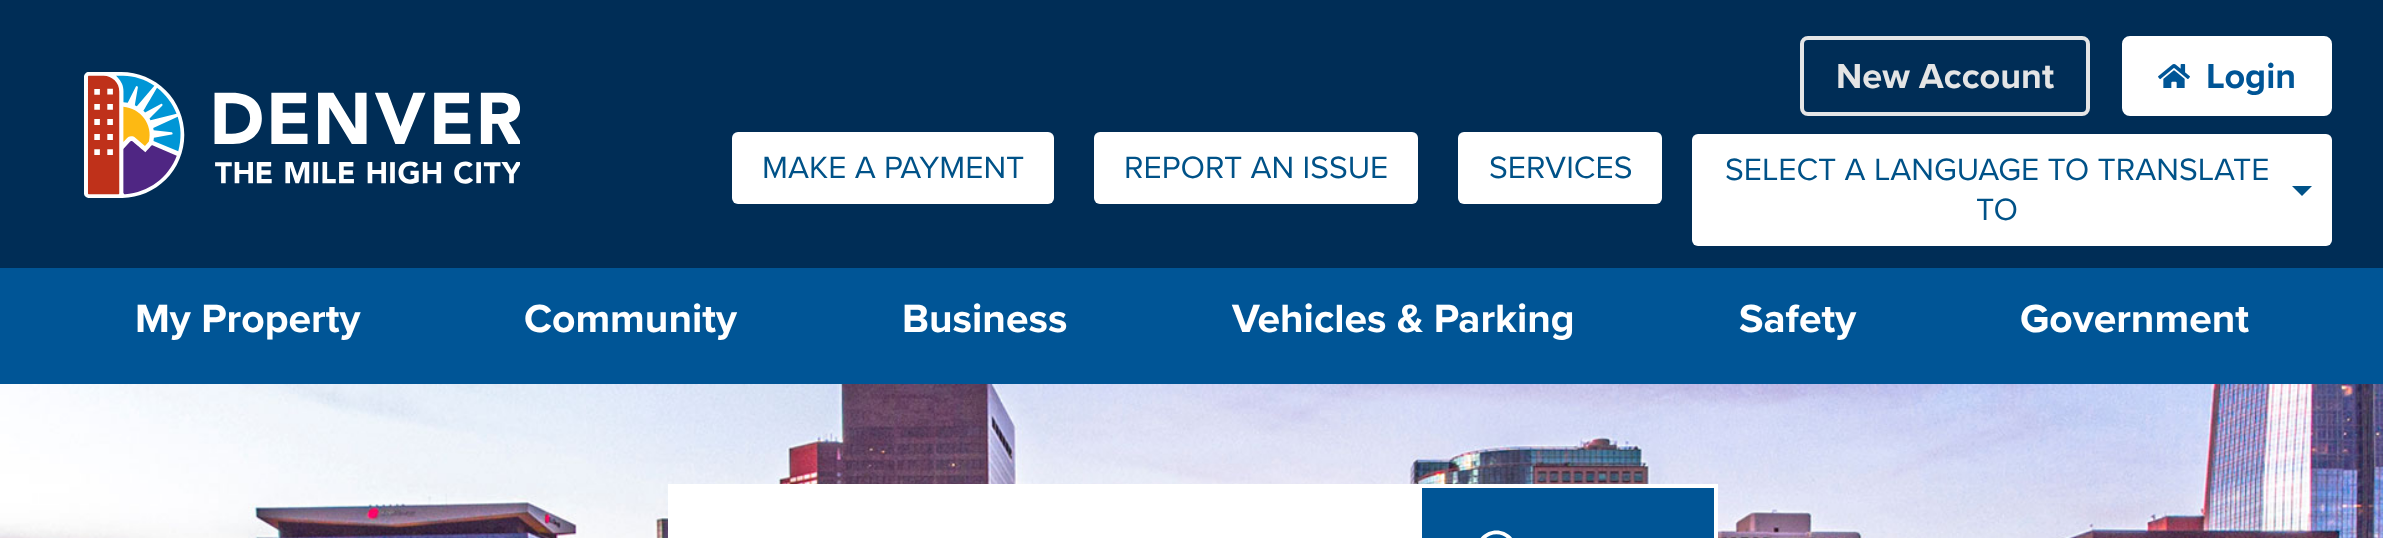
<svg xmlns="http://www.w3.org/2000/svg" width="2383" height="538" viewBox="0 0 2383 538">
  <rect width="100%" height="100%" fill="#002d56"/>
  <rect x="1802" y="38" width="286" height="76" rx="6" fill="none" stroke="#e5e5e5" stroke-width="4"/>
  <text x="1836" y="88" font-family="Proxima Nova" font-size="36" font-weight="bold" fill="#e5e5e5">New Account</text>
  <rect x="2124" y="38" width="206" height="76" rx="6" fill="#ffffff" stroke="#ffffff" stroke-width="4"/>
  <image x="2158" y="64" width="32" height="24" href="img1.png"/>
  <text x="2206" y="88" font-family="Proxima Nova" font-size="36" font-weight="bold" fill="#005596">Login</text>
  <rect x="732" y="132" width="322" height="72" rx="6" fill="#ffffff"/>
  <text x="762" y="178" font-family="Proxima Nova" font-size="32" fill="#005288">MAKE A PAYMENT</text>
  <rect x="1094" y="132" width="324" height="72" rx="6" fill="#ffffff"/>
  <text x="1124" y="178" font-family="Proxima Nova" font-size="32" fill="#005288">REPORT AN ISSUE</text>
  <rect x="1458" y="132" width="204" height="72" rx="6" fill="#ffffff"/>
  <text x="1489" y="178" font-family="Proxima Nova" font-size="32" fill="#005288">SERVICES</text>
  <rect x="1692" y="134" width="640" height="112" rx="6" fill="#ffffff"/>
  <text x="1725" y="180" font-family="Proxima Nova" font-size="32" fill="#005288">SELECT A LANGUAGE TO TRANSLATE</text>
  <path d="M2292 186H2312L2302 196Z" fill="#005288"/>
  <text x="1976" y="220" font-family="Proxima Nova" font-size="32" fill="#005288">TO</text>
  <image x="84" y="72" width="436" height="126" href="img2.png"/>
  <rect x="0" y="268" width="2383" height="116" fill="#005596"/>
  <text x="135" y="332" font-family="Proxima Nova" font-size="40.75" font-weight="bold" fill="#ffffff">My Property</text>
  <text x="524" y="332" font-family="Proxima Nova" font-size="40.75" font-weight="bold" fill="#ffffff">Community</text>
  <text x="902" y="332" font-family="Proxima Nova" font-size="40.75" font-weight="bold" fill="#ffffff">Business</text>
  <text x="1232" y="332" font-family="Proxima Nova" font-size="40.75" font-weight="bold" fill="#ffffff">Vehicles &amp; Parking</text>
  <text x="1739" y="332" font-family="Proxima Nova" font-size="40.75" font-weight="bold" fill="#ffffff">Safety</text>
  <text x="2020" y="332" font-family="Proxima Nova" font-size="40.75" font-weight="bold" fill="#ffffff">Government</text>
  <image x="0" y="384" width="2383" height="154" href="img4.png"/>
  <rect x="668" y="484" width="750" height="54" fill="#ffffff"/>
  <rect x="1422" y="488" width="292" height="50" fill="#005596"/>
  <image x="1480" y="530" width="32" height="8" href="img3.png"/>
  <rect x="1420" y="486" width="296" height="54" fill="none" stroke="#ffffff" stroke-width="4"/>
</svg>
